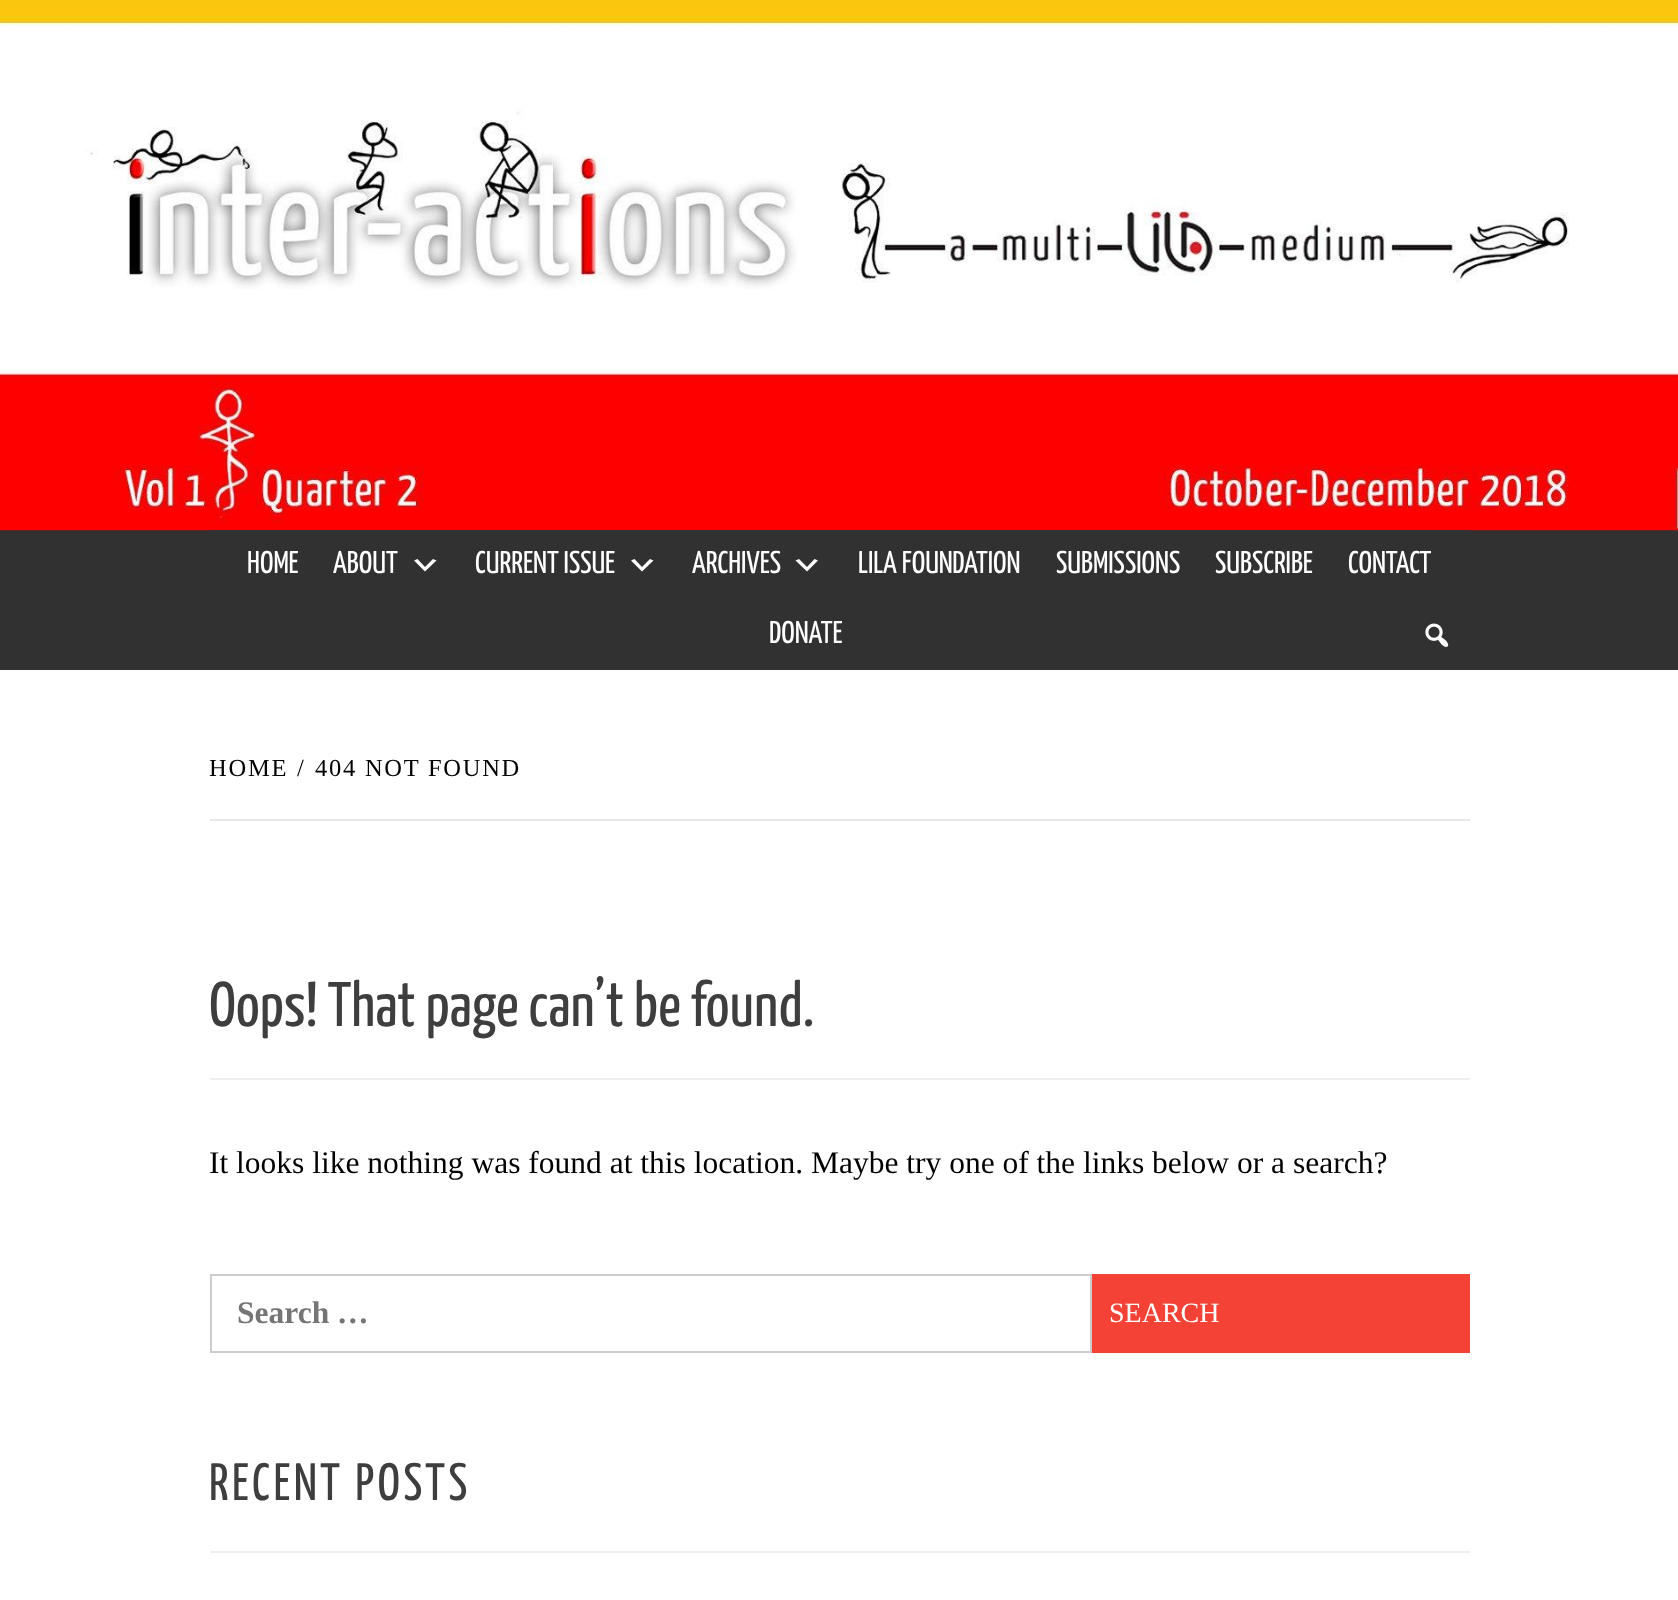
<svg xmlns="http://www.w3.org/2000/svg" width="1678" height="1600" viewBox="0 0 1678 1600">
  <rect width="100%" height="100%" fill="#ffffff"/>
  <rect x="0" y="530" width="1678" height="140" fill="#313132"/>
  <image x="0" y="0" width="1678" height="531" href="img1.png"/>
  <rect x="210" y="530" width="1260" height="1" fill="#313132"/>
  <text x="247" y="573" font-family="Yanone Kaffeesatz" font-size="31.5" fill="#ffffff">HOME</text>
  <text x="333" y="573" font-family="Yanone Kaffeesatz" font-size="31.5" fill="#ffffff">ABOUT</text>
  <path d="M417.5 559L425 567L433 559L436.5 560.5L425 571.5L414 560.5Z" fill="#ffffff"/>
  <text x="475" y="573" font-family="Yanone Kaffeesatz" font-size="31.5" fill="#ffffff">CURRENT ISSUE</text>
  <path d="M634.5 559L642 567L650 559L653.5 560.5L642 571.5L631 560.5Z" fill="#ffffff"/>
  <text x="692" y="573" font-family="Yanone Kaffeesatz" font-size="31.5" fill="#ffffff">ARCHIVES</text>
  <path d="M799 559L807 567L814.5 559L818 560.5L807 571.5L795.5 560.5Z" fill="#ffffff"/>
  <text x="858" y="573" font-family="Yanone Kaffeesatz" font-size="31.5" fill="#ffffff">LILA FOUNDATION</text>
  <text x="1056" y="573" font-family="Yanone Kaffeesatz" font-size="31.5" fill="#ffffff">SUBMISSIONS</text>
  <text x="1215" y="573" font-family="Yanone Kaffeesatz" font-size="31.5" fill="#ffffff">SUBSCRIBE</text>
  <text x="1348" y="573" font-family="Yanone Kaffeesatz" font-size="31.5" fill="#ffffff">CONTACT</text>
  <text x="769" y="643" font-family="Yanone Kaffeesatz" font-size="31.5" fill="#ffffff">DONATE</text>
  <image x="1425" y="623" width="24" height="24" href="img2.png"/>
  <rect x="210" y="819" width="1260" height="2" fill="#e8e8e8"/>
  <text x="209" y="776" font-family="Liberation Serif" font-size="24.5" letter-spacing="1.75" fill="#000000">HOME</text>
  <text x="297" y="776" font-family="Liberation Serif" font-size="24.5" letter-spacing="1.75" fill="#000000">/</text>
  <text x="315" y="776" font-family="Liberation Serif" font-size="24.5" letter-spacing="1.75" fill="#000000">404 NOT FOUND</text>
  <rect x="210" y="1078" width="1260" height="2" fill="#eeeeee"/>
  <text x="209" y="1026" font-family="Yanone Kaffeesatz" font-size="63" fill="#3e3e3e">Oops! That page can’t be found.</text>
  <text x="209" y="1173" font-family="Liberation Serif" font-size="31.5" fill="#000000">It looks like nothing was found at this location. Maybe try one of the links below or a search?</text>
  <rect x="211" y="1275" width="880" height="77" fill="none" stroke="#cccccc" stroke-width="2"/>
  <text x="237" y="1323" font-family="Liberation Serif" font-size="31.5" font-weight="bold" fill="#757575">Search …</text>
  <rect x="1092" y="1274" width="378" height="79" fill="#f44336"/>
  <text x="1109" y="1322" font-family="Liberation Serif" font-size="28" fill="#ffffff">SEARCH</text>
  <rect x="210" y="1551" width="1260" height="2" fill="#eeeeee"/>
  <text x="209" y="1500" font-family="Yanone Kaffeesatz" font-size="52.5" letter-spacing="3.5" fill="#3e3e3e">RECENT POSTS</text>
</svg>
